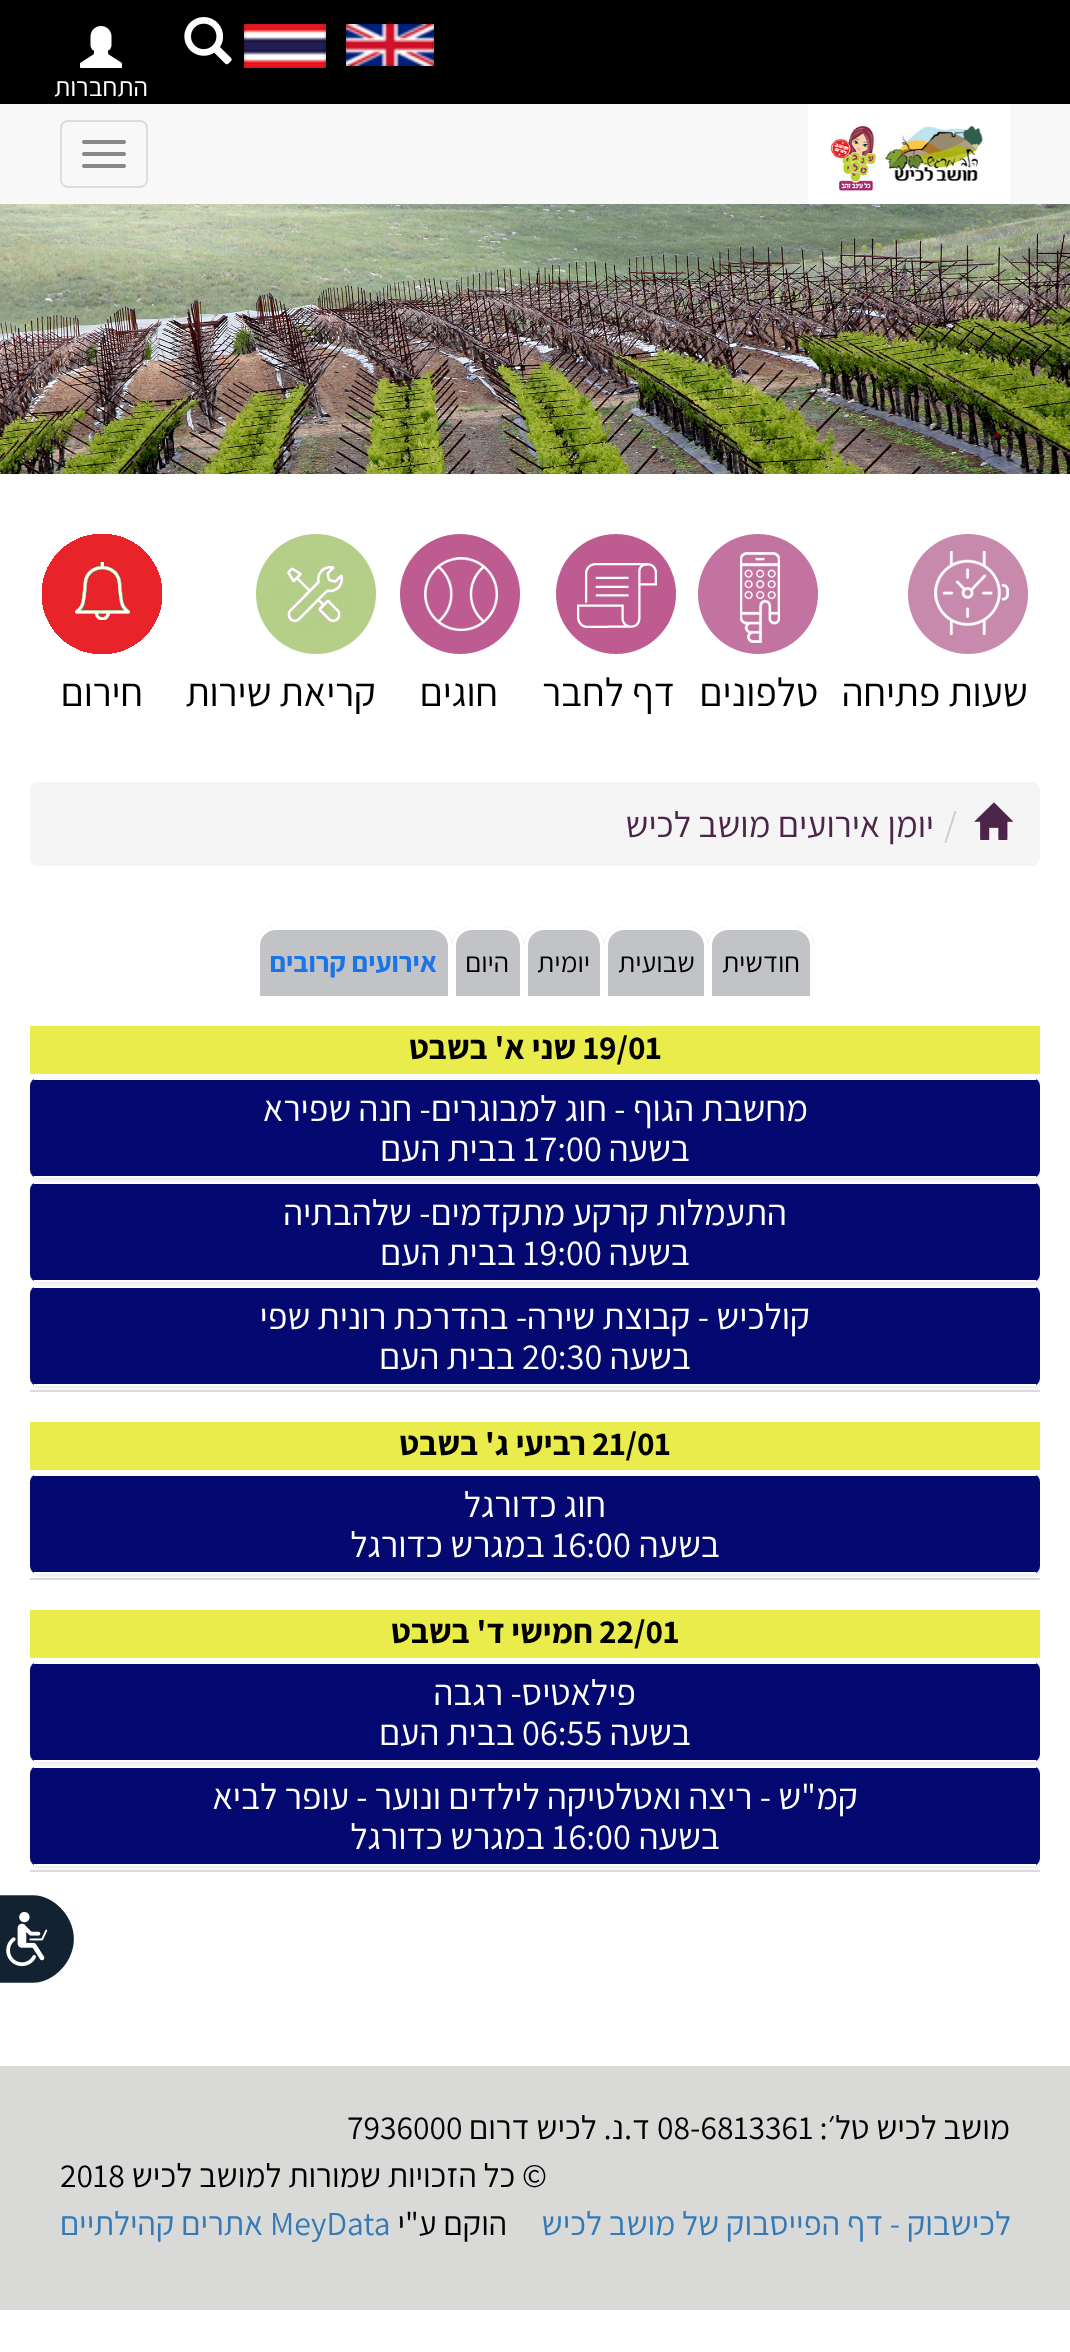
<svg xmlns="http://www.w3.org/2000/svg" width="1070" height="2352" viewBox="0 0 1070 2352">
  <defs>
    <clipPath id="clip1"><rect x="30" y="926" width="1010" height="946"/></clipPath>
    <filter id="blur1" x="-50%" y="-200%" width="200%" height="500%"><feGaussianBlur stdDeviation="2"/></filter>
  </defs>
  <rect width="100%" height="100%" fill="#ffffff"/>
  <rect x="0" y="0" width="1070" height="104" fill="#000000"/>
  <image x="346" y="24" width="88" height="42" href="img1.png"/>
  <image x="244" y="24" width="82" height="44" href="img2.png"/>
  <image x="184" y="17" width="48" height="48" href="img3.png"/>
  <image x="80" y="26" width="42" height="42" href="img4.png"/>
  <text x="148" y="96" font-family="Assistant" font-size="26.5" direction="rtl" fill="#ffffff">התחברות</text>
  <rect x="0" y="104" width="1070" height="100" fill="#f8f8f8"/>
  <image x="808" y="104" width="202" height="100" href="img5.png"/>
  <rect x="61" y="121" width="86" height="66" rx="7" fill="none" stroke="#dddddd" stroke-width="2"/>
  <rect x="82" y="140" width="44" height="4" rx="2" fill="#888888"/>
  <rect x="82" y="152" width="44" height="4" rx="2" fill="#888888"/>
  <rect x="82" y="164" width="44" height="4" rx="2" fill="#888888"/>
  <image x="0" y="204" width="1070" height="270" href="img6.png"/>
  <image x="908" y="534" width="120" height="120" href="img7.png"/>
  <text x="1028" y="706" font-family="Assistant" font-size="40" direction="rtl" fill="#000000">שעות פתיחה</text>
  <image x="698" y="534" width="120" height="120" href="img8.png"/>
  <text x="818" y="706" font-family="Assistant" font-size="40" direction="rtl" fill="#000000">טלפונים</text>
  <image x="556" y="534" width="120" height="120" href="img9.png"/>
  <text x="675" y="706" font-family="Assistant" font-size="40" direction="rtl" fill="#000000">דף לחבר</text>
  <image x="400" y="534" width="120" height="120" href="img10.png"/>
  <text x="498" y="706" font-family="Assistant" font-size="40" direction="rtl" fill="#000000">חוגים</text>
  <image x="256" y="534" width="120" height="120" href="img11.png"/>
  <text x="376" y="706" font-family="Assistant" font-size="40" direction="rtl" fill="#000000">קריאת שירות</text>
  <image x="42" y="534" width="120" height="120" href="img12.png"/>
  <text x="143" y="706" font-family="Assistant" font-size="40" direction="rtl" fill="#000000">חירום</text>
  <rect x="30" y="782" width="1010" height="84" rx="8" fill="#f5f5f5"/>
  <image x="974" y="802" width="39" height="38" href="img13.png"/>
  <text x="944" y="837" font-family="Assistant" font-size="36.4" fill="#cccccc">/</text>
  <text x="934" y="837" font-family="Assistant" font-size="36.4" direction="rtl" fill="#4d254a">יומן אירועים מושב לכיש</text>
  <path d="M728 926H794C805 926 814 935 814 946V996H708V946C708 935 717 926 728 926Z" fill="#c1c3c6"/>
  <path d="M728 926H794C805 926 814 935 814 946V996H708V946C708 935 717 926 728 926ZM728 930H794C803 930 810 937 810 946V996H712V946C712 937 719 930 728 930Z" fill="#ffffff" fill-rule="evenodd"/>
  <text x="800" y="972" font-family="Assistant" font-size="28" direction="rtl" fill="#000000">חודשית</text>
  <path d="M624 926H688C699 926 708 935 708 946V996H604V946C604 935 613 926 624 926Z" fill="#c1c3c6"/>
  <path d="M624 926H688C699 926 708 935 708 946V996H604V946C604 935 613 926 624 926ZM624 930H688C697 930 704 937 704 946V996H608V946C608 937 615 930 624 930Z" fill="#ffffff" fill-rule="evenodd"/>
  <text x="695" y="972" font-family="Assistant" font-size="28" direction="rtl" fill="#000000">שבועית</text>
  <path d="M544 926H584C595 926 604 935 604 946V996H524V946C524 935 533 926 544 926Z" fill="#c1c3c6"/>
  <path d="M544 926H584C595 926 604 935 604 946V996H524V946C524 935 533 926 544 926ZM544 930H584C593 930 600 937 600 946V996H528V946C528 937 535 930 544 930Z" fill="#ffffff" fill-rule="evenodd"/>
  <text x="590" y="972" font-family="Assistant" font-size="28" direction="rtl" fill="#000000">יומית</text>
  <path d="M472 926H504C515 926 524 935 524 946V996H452V946C452 935 461 926 472 926Z" fill="#c1c3c6"/>
  <path d="M472 926H504C515 926 524 935 524 946V996H452V946C452 935 461 926 472 926ZM472 930H504C513 930 520 937 520 946V996H456V946C456 937 463 930 472 930Z" fill="#ffffff" fill-rule="evenodd"/>
  <text x="509" y="972" font-family="Assistant" font-size="28" direction="rtl" fill="#000000">היום</text>
  <path d="M276 926H432C443 926 452 935 452 946V996H256V946C256 935 265 926 276 926Z" fill="#c1c3c6"/>
  <path d="M276 926H432C443 926 452 935 452 946V996H256V946C256 935 265 926 276 926ZM276 930H432C441 930 448 937 448 946V996H260V946C260 937 267 930 276 930Z" fill="#ffffff" fill-rule="evenodd"/>
  <text x="437" y="972" font-family="Assistant" font-size="28" font-weight="bold" direction="rtl" fill="#1a73e8">אירועים קרובים</text>
  <rect x="30" y="1390" width="1010" height="2" fill="#dadce0"/>
  <rect x="30" y="1026" width="1010" height="48" fill="#e9ec4b"/>
  <text x="583" y="1059" font-family="Assistant" font-size="33.6" font-weight="bold" fill="#000000">19/01</text>
  <text x="576" y="1059" font-family="Assistant" font-size="33.6" font-weight="bold" direction="rtl" fill="#000000">שני א' בשבט</text>
  <g clip-path="url(#clip1)">
    <rect x="32" y="1080" width="1010" height="100" rx="8" fill="#000000" fill-opacity="0.1" filter="url(#blur1)"/>
  </g>
  <rect x="30" y="1078" width="1010" height="100" rx="8" fill="#040871"/>
  <rect x="34" y="1078" width="1002" height="2" fill="#ffffff"/>
  <rect x="34" y="1176" width="1002" height="2" fill="#ffffff"/>
  <text x="808" y="1121" font-family="Assistant" font-size="36.4" direction="rtl" fill="#ffffff">מחשבת הגוף - חוג למבוגרים- חנה שפירא</text>
  <text x="690" y="1161" font-family="Assistant" font-size="36.4" direction="rtl" fill="#ffffff">בשעה</text>
  <text x="523" y="1161" font-family="Assistant" font-size="36.4" fill="#ffffff">17:00</text>
  <text x="516" y="1161" font-family="Assistant" font-size="36.4" direction="rtl" fill="#ffffff">בבית העם</text>
  <g clip-path="url(#clip1)">
    <rect x="32" y="1184" width="1010" height="100" rx="8" fill="#000000" fill-opacity="0.1" filter="url(#blur1)"/>
  </g>
  <rect x="30" y="1182" width="1010" height="100" rx="8" fill="#040871"/>
  <rect x="34" y="1182" width="1002" height="2" fill="#ffffff"/>
  <rect x="34" y="1280" width="1002" height="2" fill="#ffffff"/>
  <text x="787" y="1225" font-family="Assistant" font-size="36.4" direction="rtl" fill="#ffffff">התעמלות קרקע מתקדמים- שלהבתיה</text>
  <text x="690" y="1265" font-family="Assistant" font-size="36.4" direction="rtl" fill="#ffffff">בשעה</text>
  <text x="523" y="1265" font-family="Assistant" font-size="36.4" fill="#ffffff">19:00</text>
  <text x="516" y="1265" font-family="Assistant" font-size="36.4" direction="rtl" fill="#ffffff">בבית העם</text>
  <g clip-path="url(#clip1)">
    <rect x="32" y="1288" width="1010" height="100" rx="8" fill="#000000" fill-opacity="0.1" filter="url(#blur1)"/>
  </g>
  <rect x="30" y="1286" width="1010" height="100" rx="8" fill="#040871"/>
  <rect x="34" y="1286" width="1002" height="2" fill="#ffffff"/>
  <rect x="34" y="1384" width="1002" height="2" fill="#ffffff"/>
  <text x="810" y="1329" font-family="Assistant" font-size="36.4" direction="rtl" fill="#ffffff">קולכיש - קבוצת שירה- בהדרכת רונית שפי</text>
  <text x="691" y="1369" font-family="Assistant" font-size="36.4" direction="rtl" fill="#ffffff">בשעה</text>
  <text x="522" y="1369" font-family="Assistant" font-size="36.4" fill="#ffffff">20:30</text>
  <text x="515" y="1369" font-family="Assistant" font-size="36.4" direction="rtl" fill="#ffffff">בבית העם</text>
  <rect x="30" y="1578" width="1010" height="2" fill="#dadce0"/>
  <rect x="30" y="1422" width="1010" height="48" fill="#e9ec4b"/>
  <text x="592" y="1455" font-family="Assistant" font-size="33.6" font-weight="bold" fill="#000000">21/01</text>
  <text x="586" y="1455" font-family="Assistant" font-size="33.6" font-weight="bold" direction="rtl" fill="#000000">רביעי ג' בשבט</text>
  <g clip-path="url(#clip1)">
    <rect x="32" y="1476" width="1010" height="100" rx="8" fill="#000000" fill-opacity="0.1" filter="url(#blur1)"/>
  </g>
  <rect x="30" y="1474" width="1010" height="100" rx="8" fill="#040871"/>
  <rect x="34" y="1474" width="1002" height="2" fill="#ffffff"/>
  <rect x="34" y="1572" width="1002" height="2" fill="#ffffff"/>
  <text x="606" y="1517" font-family="Assistant" font-size="36.4" direction="rtl" fill="#ffffff">חוג כדורגל</text>
  <text x="720" y="1557" font-family="Assistant" font-size="36.4" direction="rtl" fill="#ffffff">בשעה</text>
  <text x="552" y="1557" font-family="Assistant" font-size="36.4" fill="#ffffff">16:00</text>
  <text x="545" y="1557" font-family="Assistant" font-size="36.4" direction="rtl" fill="#ffffff">במגרש כדורגל</text>
  <rect x="30" y="1870" width="1010" height="2" fill="#dadce0"/>
  <rect x="30" y="1610" width="1010" height="48" fill="#e9ec4b"/>
  <text x="599" y="1643" font-family="Assistant" font-size="33.6" font-weight="bold" fill="#000000">22/01</text>
  <text x="593" y="1643" font-family="Assistant" font-size="33.6" font-weight="bold" direction="rtl" fill="#000000">חמישי ד' בשבט</text>
  <g clip-path="url(#clip1)">
    <rect x="32" y="1664" width="1010" height="100" rx="8" fill="#000000" fill-opacity="0.1" filter="url(#blur1)"/>
  </g>
  <rect x="30" y="1662" width="1010" height="100" rx="8" fill="#040871"/>
  <rect x="34" y="1662" width="1002" height="2" fill="#ffffff"/>
  <rect x="34" y="1760" width="1002" height="2" fill="#ffffff"/>
  <text x="636" y="1705" font-family="Assistant" font-size="36.4" direction="rtl" fill="#ffffff">פילאטיס- רגבה</text>
  <text x="691" y="1745" font-family="Assistant" font-size="36.4" direction="rtl" fill="#ffffff">בשעה</text>
  <text x="522" y="1745" font-family="Assistant" font-size="36.4" fill="#ffffff">06:55</text>
  <text x="515" y="1745" font-family="Assistant" font-size="36.4" direction="rtl" fill="#ffffff">בבית העם</text>
  <g clip-path="url(#clip1)">
    <rect x="32" y="1768" width="1010" height="100" rx="8" fill="#000000" fill-opacity="0.1" filter="url(#blur1)"/>
  </g>
  <rect x="30" y="1766" width="1010" height="100" rx="8" fill="#040871"/>
  <rect x="34" y="1766" width="1002" height="2" fill="#ffffff"/>
  <rect x="34" y="1864" width="1002" height="2" fill="#ffffff"/>
  <text x="858" y="1809" font-family="Assistant" font-size="36.4" direction="rtl" fill="#ffffff">קמ"ש - ריצה ואטלטיקה לילדים ונוער - עופר לביא</text>
  <text x="720" y="1849" font-family="Assistant" font-size="36.4" direction="rtl" fill="#ffffff">בשעה</text>
  <text x="552" y="1849" font-family="Assistant" font-size="36.4" fill="#ffffff">16:00</text>
  <text x="545" y="1849" font-family="Assistant" font-size="36.4" direction="rtl" fill="#ffffff">במגרש כדורגל</text>
  <image x="0" y="1895" width="74" height="88" href="img14.png"/>
  <rect x="0" y="2066" width="1070" height="244" fill="#d9d9d8"/>
  <text x="1010" y="2139" font-family="Assistant" font-size="33.6" direction="rtl" fill="#000000">מושב לכיש טל׳:</text>
  <text x="657" y="2139" font-family="Assistant" font-size="33.6" fill="#000000">08-6813361</text>
  <text x="650" y="2139" font-family="Assistant" font-size="33.6" direction="rtl" fill="#000000">ד.נ. לכיש דרום</text>
  <text x="347" y="2139" font-family="Assistant" font-size="33.6" fill="#000000">7936000</text>
  <text x="547" y="2187" font-family="Assistant" font-size="33.6" direction="rtl" fill="#000000">© כל הזכויות שמורות למושב לכיש</text>
  <text x="60" y="2187" font-family="Assistant" font-size="33.6" fill="#000000">2018</text>
  <text x="1011" y="2235" font-family="Assistant" font-size="33.6" direction="rtl" fill="#337ab7">לכישבוק - דף הפייסבוק של מושב לכיש</text>
  <text x="507" y="2235" font-family="Assistant" font-size="33.6" direction="rtl" fill="#000000">הוקם ע"י</text>
  <text x="270" y="2235" font-family="Assistant" font-size="33.6" fill="#337ab7">MeyData</text>
  <text x="263" y="2235" font-family="Assistant" font-size="33.6" direction="rtl" fill="#337ab7">אתרים קהילתיים</text>
</svg>
